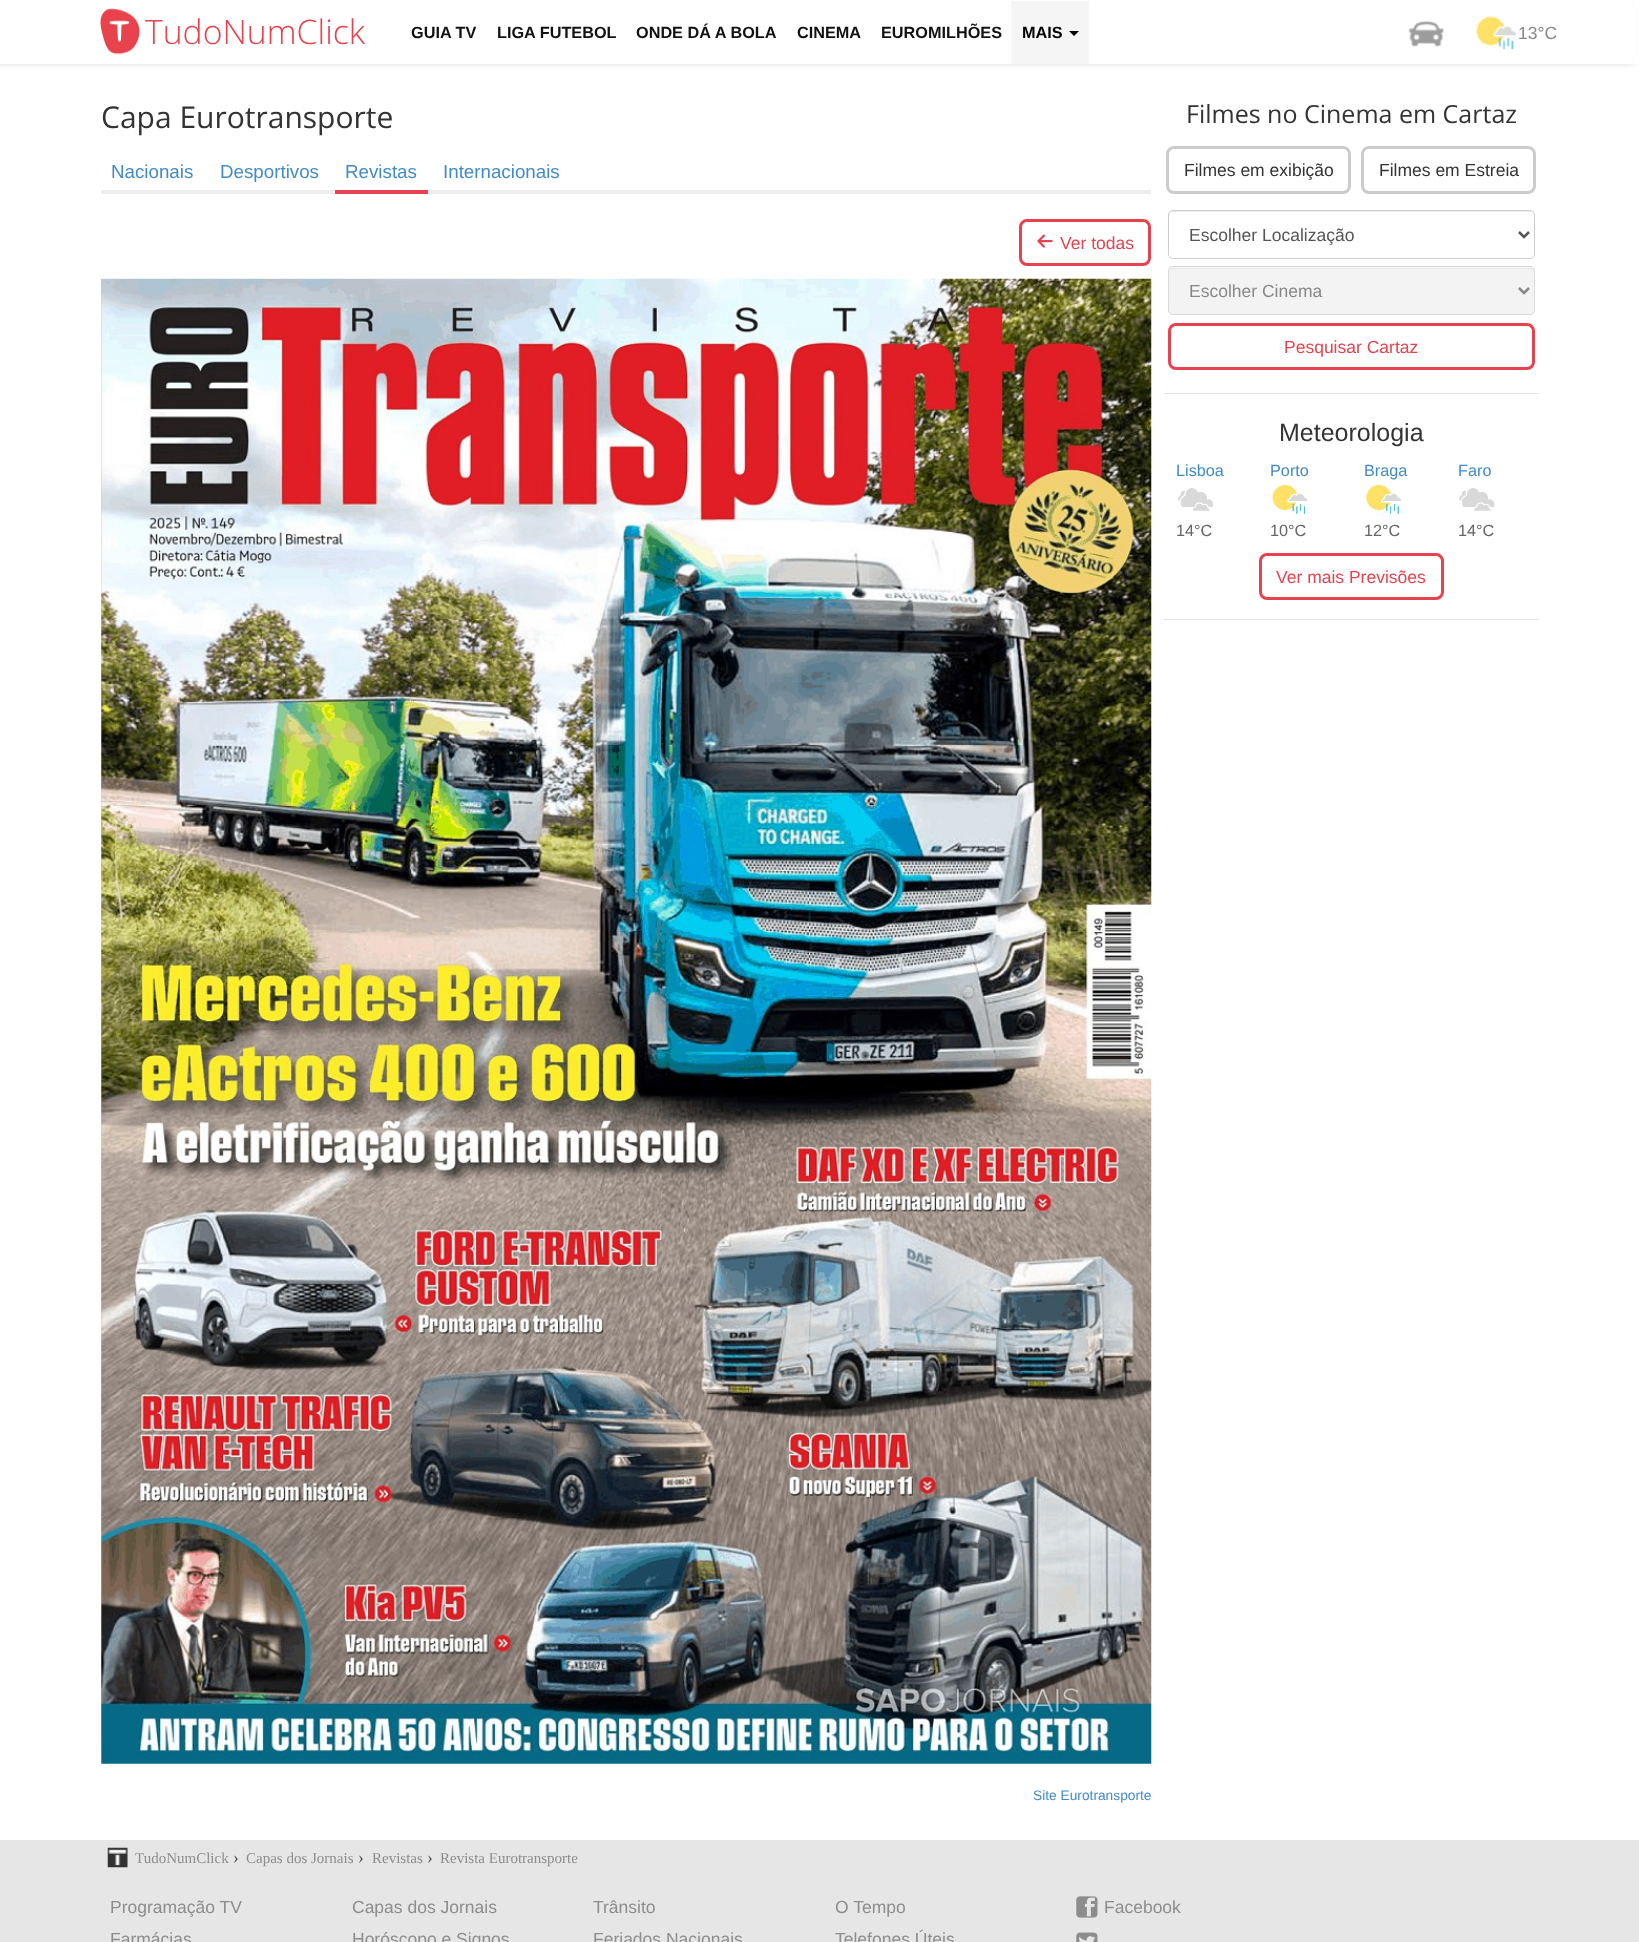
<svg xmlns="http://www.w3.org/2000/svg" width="1639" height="1942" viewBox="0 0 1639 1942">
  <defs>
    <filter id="blur1" x="-50%" y="-200%" width="200%" height="500%"><feGaussianBlur stdDeviation="3"/></filter>
  </defs>
  <rect width="100%" height="100%" fill="#ffffff"/>
  <rect x="-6" y="0" width="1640" height="64" fill="#000000" fill-opacity="0.13" filter="url(#blur1)"/>
  <rect x="0" y="0" width="1638" height="64" fill="#ffffff"/>
  <image x="100" y="8" width="40" height="47" href="img1.png"/>
  <text x="145" y="44" font-family="Open Sans" font-size="33.75" font-weight="300" fill="#e8424e">TudoNumClick</text>
  <text x="411" y="38" font-family="Liberation Sans" font-size="16.25" font-weight="bold" fill="#111111">GUIA TV</text>
  <text x="497" y="38" font-family="Liberation Sans" font-size="16.25" font-weight="bold" fill="#111111">LIGA FUTEBOL</text>
  <text x="636" y="38" font-family="Liberation Sans" font-size="16.25" font-weight="bold" fill="#111111">ONDE DÁ A BOLA</text>
  <text x="797" y="38" font-family="Liberation Sans" font-size="16.25" font-weight="bold" fill="#111111">CINEMA</text>
  <text x="881" y="38" font-family="Liberation Sans" font-size="16.25" font-weight="bold" fill="#111111">EUROMILHÕES</text>
  <rect x="1011" y="1" width="78" height="63" fill="#f5f5f5"/>
  <text x="1022" y="38" font-family="Liberation Sans" font-size="16.25" font-weight="bold" fill="#000000">MAIS</text>
  <path d="M1069 31H1079L1074 36Z" fill="#000000"/>
  <image x="1408" y="20" width="36" height="27" href="img2.png"/>
  <image x="1476" y="16" width="41" height="34" href="img3.png"/>
  <text x="1518" y="39" font-family="Liberation Sans" font-size="17.5" fill="#888888">13°C</text>
  <text x="101" y="128" font-family="Open Sans" font-size="30" fill="#333333">Capa Eurotransporte</text>
  <rect x="101" y="190" width="1050" height="4" fill="#eeeeee"/>
  <text x="111" y="178" font-family="Liberation Sans" font-size="18.75" fill="#428bca">Nacionais</text>
  <text x="220" y="178" font-family="Liberation Sans" font-size="18.75" fill="#428bca">Desportivos</text>
  <rect x="335" y="190" width="93" height="4" fill="#e8424e"/>
  <text x="345" y="178" font-family="Liberation Sans" font-size="18.75" fill="#428bca">Revistas</text>
  <text x="443" y="178" font-family="Liberation Sans" font-size="18.75" fill="#428bca">Internacionais</text>
  <rect x="1020.5" y="220.5" width="129" height="44" rx="6.5" fill="none" stroke="#e8424e" stroke-width="3"/>
  <image x="1037" y="234" width="16" height="14" href="img4.png"/>
  <text x="1060" y="249" font-family="Liberation Sans" font-size="17.5" fill="#e8424e">Ver todas</text>
  <image x="101" y="278" width="1051" height="1486" href="img5.png"/>
  <text x="1033" y="1800" font-family="Liberation Sans" font-size="13.75" fill="#428bca">Site Eurotransporte</text>
  <rect x="1164" y="393" width="375" height="1" fill="#e4e4e4"/>
  <text x="1186" y="123" font-family="Open Sans" font-size="25" fill="#333333">Filmes no Cinema em Cartaz</text>
  <rect x="1167.5" y="147.5" width="182" height="45" rx="6.5" fill="none" stroke="#cccccc" stroke-width="3"/>
  <text x="1184" y="176" font-family="Liberation Sans" font-size="17.5" fill="#333333">Filmes em exibição</text>
  <rect x="1362.5" y="147.5" width="172" height="45" rx="6.5" fill="none" stroke="#cccccc" stroke-width="3"/>
  <text x="1379" y="176" font-family="Liberation Sans" font-size="17.5" fill="#333333">Filmes em Estreia</text>
  <path d="M1172 212H1530C1532 212 1534 214 1534 216L1533 213L1531 211H1173C1170 211 1169 213 1169 216C1169 214 1170 212 1172 212Z" fill="#ececec"/>
  <rect x="1168.5" y="210.5" width="366" height="48" rx="4.5" fill="none" stroke="#cccccc"/>
  <path d="M1519 232L1524 237L1529 232" fill="none" stroke="#555555" stroke-width="2.5"/>
  <text x="1189" y="241" font-family="Liberation Sans" font-size="17.5" fill="#555555">Escolher Localização</text>
  <rect x="1168" y="266" width="367" height="49" rx="5" fill="#f3f3f3"/>
  <path d="M1172 269H1530C1532 269 1534 270 1534 272C1534 270 1532 268 1530 268H1173C1172 268 1170 269 1170 270Z" fill="#e7e7e7"/>
  <rect x="1168.5" y="266.5" width="366" height="48" rx="4.5" fill="none" stroke="#dbdbdb"/>
  <path d="M1519 288L1524 293L1529 288" fill="none" stroke="#888888" stroke-width="2.5"/>
  <text x="1189" y="297" font-family="Liberation Sans" font-size="17.5" fill="#888888">Escolher Cinema</text>
  <rect x="1169.5" y="324.5" width="364" height="44" rx="6.5" fill="none" stroke="#e8424e" stroke-width="3"/>
  <text x="1284" y="353" font-family="Liberation Sans" font-size="17.5" fill="#e8424e">Pesquisar Cartaz</text>
  <rect x="1164" y="619" width="375" height="1" fill="#e4e4e4"/>
  <text x="1279" y="441" font-family="Liberation Sans" font-size="25" fill="#333333">Meteorologia</text>
  <text x="1176" y="476" font-family="Liberation Sans" font-size="16.25" fill="#428bca">Lisboa</text>
  <image x="1178" y="488" width="35" height="23" href="img6.png"/>
  <text x="1176" y="536" font-family="Liberation Sans" font-size="16.25" fill="#666666">14°C</text>
  <text x="1270" y="476" font-family="Liberation Sans" font-size="16.25" fill="#428bca">Porto</text>
  <image x="1272" y="485" width="36" height="29" href="img7.png"/>
  <text x="1270" y="536" font-family="Liberation Sans" font-size="16.25" fill="#666666">10°C</text>
  <text x="1364" y="476" font-family="Liberation Sans" font-size="16.25" fill="#428bca">Braga</text>
  <image x="1366" y="485" width="36" height="29" href="img8.png"/>
  <text x="1364" y="536" font-family="Liberation Sans" font-size="16.25" fill="#666666">12°C</text>
  <text x="1458" y="476" font-family="Liberation Sans" font-size="16.25" fill="#428bca">Faro</text>
  <image x="1459" y="488" width="36" height="23" href="img9.png"/>
  <text x="1458" y="536" font-family="Liberation Sans" font-size="16.25" fill="#666666">14°C</text>
  <rect x="1260.5" y="554.5" width="182" height="44" rx="6.5" fill="none" stroke="#e8424e" stroke-width="3"/>
  <text x="1276" y="583" font-family="Liberation Sans" font-size="17.5" fill="#e8424e">Ver mais Previsões</text>
  <rect x="0" y="1840" width="1639" height="102" fill="#e6e6e6"/>
  <image x="107" y="1847" width="21" height="21" href="img10.png"/>
  <text x="135" y="1863" font-family="Liberation Serif" font-size="15" fill="#8e8d8d">TudoNumClick</text>
  <text x="233" y="1863" font-family="Liberation Serif" font-size="17.5" fill="#504e4e">›</text>
  <text x="246" y="1863" font-family="Liberation Serif" font-size="15" fill="#8e8d8d">Capas dos Jornais</text>
  <text x="358" y="1863" font-family="Liberation Serif" font-size="17.5" fill="#504e4e">›</text>
  <text x="372" y="1863" font-family="Liberation Serif" font-size="15" fill="#8e8d8d">Revistas</text>
  <text x="427" y="1863" font-family="Liberation Serif" font-size="17.5" fill="#504e4e">›</text>
  <text x="440" y="1863" font-family="Liberation Serif" font-size="15" fill="#8e8d8d">Revista Eurotransporte</text>
  <text x="110" y="1913" font-family="Liberation Sans" font-size="17.5" fill="#8e8d8d">Programação TV</text>
  <text x="110" y="1945" font-family="Liberation Sans" font-size="17.5" fill="#8e8d8d">Farmácias</text>
  <text x="352" y="1913" font-family="Liberation Sans" font-size="17.5" fill="#8e8d8d">Capas dos Jornais</text>
  <text x="352" y="1945" font-family="Liberation Sans" font-size="17.5" fill="#8e8d8d">Horóscopo e Signos</text>
  <text x="593" y="1913" font-family="Liberation Sans" font-size="17.5" fill="#8e8d8d">Trânsito</text>
  <text x="593" y="1945" font-family="Liberation Sans" font-size="17.5" fill="#8e8d8d">Feriados Nacionais</text>
  <text x="835" y="1913" font-family="Liberation Sans" font-size="17.5" fill="#8e8d8d">O Tempo</text>
  <text x="835" y="1945" font-family="Liberation Sans" font-size="17.5" fill="#8e8d8d">Telefones Úteis</text>
  <image x="1076" y="1896" width="22" height="22" href="img11.png"/>
  <text x="1104" y="1913" font-family="Liberation Sans" font-size="17.5" fill="#8e8d8d">Facebook</text>
  <image x="1076" y="1932" width="22" height="10" href="img12.png"/>
</svg>
